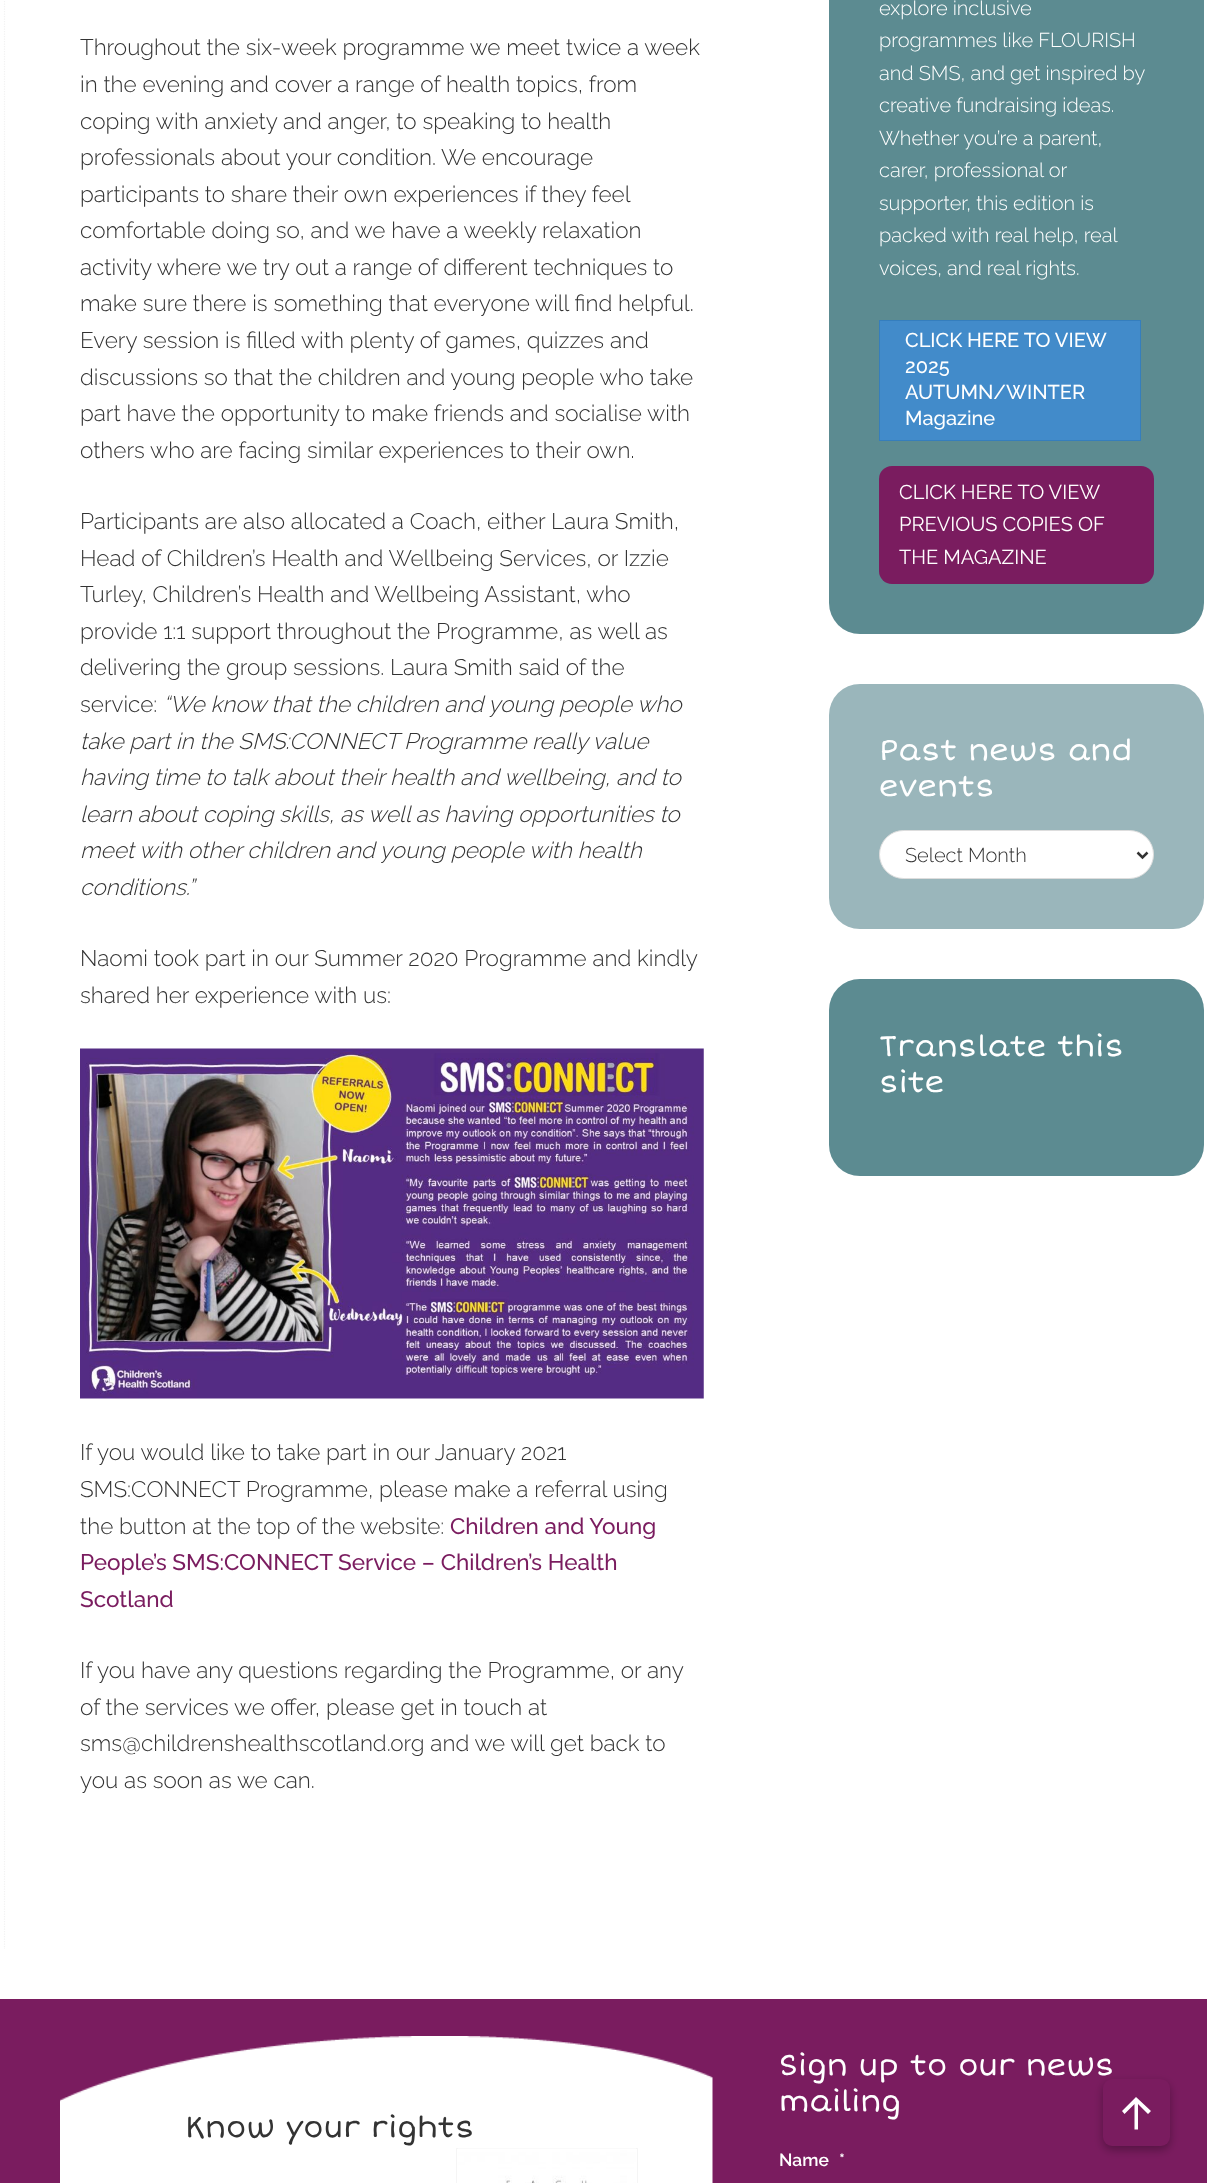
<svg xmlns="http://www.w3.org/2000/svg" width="1207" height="2183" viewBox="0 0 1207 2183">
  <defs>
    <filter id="blur1" x="-50%" y="-200%" width="200%" height="500%"><feGaussianBlur stdDeviation="5"/></filter>
  </defs>
  <rect width="100%" height="100%" fill="#ffffff"/>
  <path d="M4.5-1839V1949" fill="none" stroke="#f2f2f2" stroke-width="1.2" stroke-dasharray="1.25 1.25"/>
  <text x="80" y="55" font-family="Raleway" font-size="22.5" font-weight="300" fill="#333333">Throughout the six-week programme we meet twice a week</text>
  <text x="80" y="92" font-family="Raleway" font-size="22.5" font-weight="300" fill="#333333">in the evening and cover a range of health topics, from</text>
  <text x="80" y="129" font-family="Raleway" font-size="22.5" font-weight="300" fill="#333333">coping with anxiety and anger, to speaking to health</text>
  <text x="80" y="165" font-family="Raleway" font-size="22.5" font-weight="300" fill="#333333">professionals about your condition. We encourage</text>
  <text x="80" y="202" font-family="Raleway" font-size="22.5" font-weight="300" fill="#333333">participants to share their own experiences if they feel</text>
  <text x="80" y="238" font-family="Raleway" font-size="22.5" font-weight="300" fill="#333333">comfortable doing so, and we have a weekly relaxation</text>
  <text x="80" y="275" font-family="Raleway" font-size="22.5" font-weight="300" fill="#333333">activity where we try out a range of different techniques to</text>
  <text x="80" y="311" font-family="Raleway" font-size="22.5" font-weight="300" fill="#333333">make sure there is something that everyone will find helpful.</text>
  <text x="80" y="348" font-family="Raleway" font-size="22.5" font-weight="300" fill="#333333">Every session is filled with plenty of games, quizzes and</text>
  <text x="80" y="385" font-family="Raleway" font-size="22.5" font-weight="300" fill="#333333">discussions so that the children and young people who take</text>
  <text x="80" y="421" font-family="Raleway" font-size="22.5" font-weight="300" fill="#333333">part have the opportunity to make friends and socialise with</text>
  <text x="80" y="458" font-family="Raleway" font-size="22.5" font-weight="300" fill="#333333">others who are facing similar experiences to their own.</text>
  <text x="80" y="529" font-family="Raleway" font-size="22.5" font-weight="300" fill="#333333">Participants are also allocated a Coach, either Laura Smith,</text>
  <text x="80" y="566" font-family="Raleway" font-size="22.5" font-weight="300" fill="#333333">Head of Children’s Health and Wellbeing Services, or Izzie</text>
  <text x="80" y="602" font-family="Raleway" font-size="22.5" font-weight="300" fill="#333333">Turley, Children’s Health and Wellbeing Assistant, who</text>
  <text x="80" y="639" font-family="Raleway" font-size="22.5" font-weight="300" fill="#333333">provide 1:1 support throughout the Programme, as well as</text>
  <text x="80" y="675" font-family="Raleway" font-size="22.5" font-weight="300" fill="#333333">delivering the group sessions. Laura Smith said of the</text>
  <text x="80" y="712" font-family="Raleway" font-size="22.5" font-weight="300" fill="#333333">service:</text>
  <text x="163" y="712" font-family="Raleway" font-size="22.5" font-weight="300" font-style="italic" fill="#333333">“We know that the children and young people who</text>
  <text x="80" y="749" font-family="Raleway" font-size="22.5" font-weight="300" font-style="italic" fill="#333333">take part in the SMS:CONNECT Programme really value</text>
  <text x="80" y="785" font-family="Raleway" font-size="22.5" font-weight="300" font-style="italic" fill="#333333">having time to talk about their health and wellbeing, and to</text>
  <text x="80" y="822" font-family="Raleway" font-size="22.5" font-weight="300" font-style="italic" fill="#333333">learn about coping skills, as well as having opportunities to</text>
  <text x="80" y="858" font-family="Raleway" font-size="22.5" font-weight="300" font-style="italic" fill="#333333">meet with other children and young people with health</text>
  <text x="80" y="895" font-family="Raleway" font-size="22.5" font-weight="300" font-style="italic" fill="#333333">conditions.”</text>
  <text x="80" y="966" font-family="Raleway" font-size="22.5" font-weight="300" fill="#333333">Naomi took part in our Summer 2020 Programme and kindly</text>
  <text x="80" y="1003" font-family="Raleway" font-size="22.5" font-weight="300" fill="#333333">shared her experience with us:</text>
  <image x="80" y="1048" width="624" height="351" href="img1.png"/>
  <text x="80" y="1460" font-family="Raleway" font-size="22.5" font-weight="300" fill="#333333">If you would like to take part in our January 2021</text>
  <text x="80" y="1497" font-family="Raleway" font-size="22.5" font-weight="300" fill="#333333">SMS:CONNECT Programme, please make a referral using</text>
  <text x="80" y="1534" font-family="Raleway" font-size="22.5" font-weight="300" fill="#333333">the button at the top of the website:</text>
  <text x="450" y="1534" font-family="Raleway" font-size="22.5" font-weight="500" fill="#7a1c5f">Children and Young</text>
  <text x="80" y="1570" font-family="Raleway" font-size="22.5" font-weight="500" fill="#7a1c5f">People’s SMS:CONNECT Service – Children’s Health</text>
  <text x="80" y="1607" font-family="Raleway" font-size="22.5" font-weight="500" fill="#7a1c5f">Scotland</text>
  <text x="80" y="1678" font-family="Raleway" font-size="22.5" font-weight="300" fill="#333333">If you have any questions regarding the Programme, or any</text>
  <text x="80" y="1715" font-family="Raleway" font-size="22.5" font-weight="300" fill="#333333">of the services we offer, please get in touch at</text>
  <text x="80" y="1751" font-family="Raleway" font-size="22.5" font-weight="300" fill="#333333">sms@childrenshealthscotland.org and we will get back to</text>
  <text x="80" y="1788" font-family="Raleway" font-size="22.5" font-weight="300" fill="#333333">you as soon as we can.</text>
  <rect x="829" y="-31" width="375" height="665" rx="31" fill="#5c8b91"/>
  <text x="879" y="15" font-family="Raleway" font-size="20" font-weight="300" fill="#ffffff">explore inclusive</text>
  <text x="879" y="47" font-family="Raleway" font-size="20" font-weight="300" fill="#ffffff">programmes like FLOURISH</text>
  <text x="879" y="80" font-family="Raleway" font-size="20" font-weight="300" fill="#ffffff">and SMS, and get inspired by</text>
  <text x="879" y="112" font-family="Raleway" font-size="20" font-weight="300" fill="#ffffff">creative fundraising ideas.</text>
  <text x="879" y="145" font-family="Raleway" font-size="20" font-weight="300" fill="#ffffff">Whether you’re a parent,</text>
  <text x="879" y="177" font-family="Raleway" font-size="20" font-weight="300" fill="#ffffff">carer, professional or</text>
  <text x="879" y="210" font-family="Raleway" font-size="20" font-weight="300" fill="#ffffff">supporter, this edition is</text>
  <text x="879" y="242" font-family="Raleway" font-size="20" font-weight="300" fill="#ffffff">packed with real help, real</text>
  <text x="879" y="275" font-family="Raleway" font-size="20" font-weight="300" fill="#ffffff">voices, and real rights.</text>
  <rect x="879.5" y="320.5" width="261" height="120" fill="#428bca" stroke="#357ebd"/>
  <text x="905" y="347" font-family="Raleway" font-size="20" font-weight="500" fill="#ffffff">CLICK HERE TO VIEW</text>
  <text x="905" y="373" font-family="Raleway" font-size="20" font-weight="500" fill="#ffffff">2025</text>
  <text x="905" y="399" font-family="Raleway" font-size="20" font-weight="500" fill="#ffffff">AUTUMN/WINTER</text>
  <text x="905" y="425" font-family="Raleway" font-size="20" font-weight="500" fill="#ffffff">Magazine</text>
  <rect x="879" y="466" width="275" height="118" rx="13" fill="#7a1c5f"/>
  <text x="899" y="499" font-family="Raleway" font-size="20" fill="#ffffff">CLICK HERE TO VIEW</text>
  <text x="899" y="531" font-family="Raleway" font-size="20" fill="#ffffff">PREVIOUS COPIES OF</text>
  <text x="899" y="564" font-family="Raleway" font-size="20" fill="#ffffff">THE MAGAZINE</text>
  <rect x="829" y="684" width="375" height="245" rx="31" fill="#9ab6bb"/>
  <text x="879" y="760" font-family="Short Stack" font-size="30" fill="#ffffff">Past news and</text>
  <text x="879" y="796" font-family="Short Stack" font-size="30" fill="#ffffff">events</text>
  <rect x="879.5" y="830.5" width="274" height="48" rx="24" fill="#ffffff" stroke="#dddddd"/>
  <path d="M1137.5 852.5L1142.5 857.5L1147.5 852.5" fill="none" stroke="#333333" stroke-width="2.5"/>
  <text x="905" y="862" font-family="Raleway" font-size="20" font-weight="300" fill="#333333">Select Month</text>
  <rect x="829" y="979" width="375" height="197" rx="31" fill="#5c8b91"/>
  <text x="879" y="1056" font-family="Short Stack" font-size="30" fill="#ffffff">Translate this</text>
  <text x="879" y="1092" font-family="Short Stack" font-size="30" fill="#ffffff">site</text>
  <rect x="0" y="1999" width="1207" height="184" fill="#7a1c5f"/>
  <image x="60" y="2036" width="653" height="147" href="img2.png"/>
  <text x="185" y="2137" font-family="Short Stack" font-size="30" fill="#333333">Know your rights</text>
  <rect x="456.5" y="2148.5" width="181" height="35" fill="none" stroke="#f5f5f5"/>
  <image x="458" y="2148" width="178" height="35" href="img3.png"/>
  <text x="779" y="2075" font-family="Short Stack" font-size="30" fill="#ffffff">Sign up to our news</text>
  <text x="779" y="2111" font-family="Short Stack" font-size="30" fill="#ffffff">mailing</text>
  <text x="779" y="2166" font-family="Raleway" font-size="17.5" font-weight="600" fill="#ffffff">Name</text>
  <text x="839" y="2166" font-family="Raleway" font-size="17.5" font-weight="600" fill="#ffffff">*</text>
  <rect x="1103" y="2083" width="67" height="67" rx="9" fill="#000000" fill-opacity="0.3" filter="url(#blur1)"/>
  <rect x="1103" y="2079" width="67" height="67" rx="9" fill="#7a1c5f"/>
  <path d="M1148 2114L1151 2111L1136 2097L1122 2111L1124.5 2114L1134.5 2104V2129.5H1138V2104Z" fill="#ffffff"/>
</svg>
